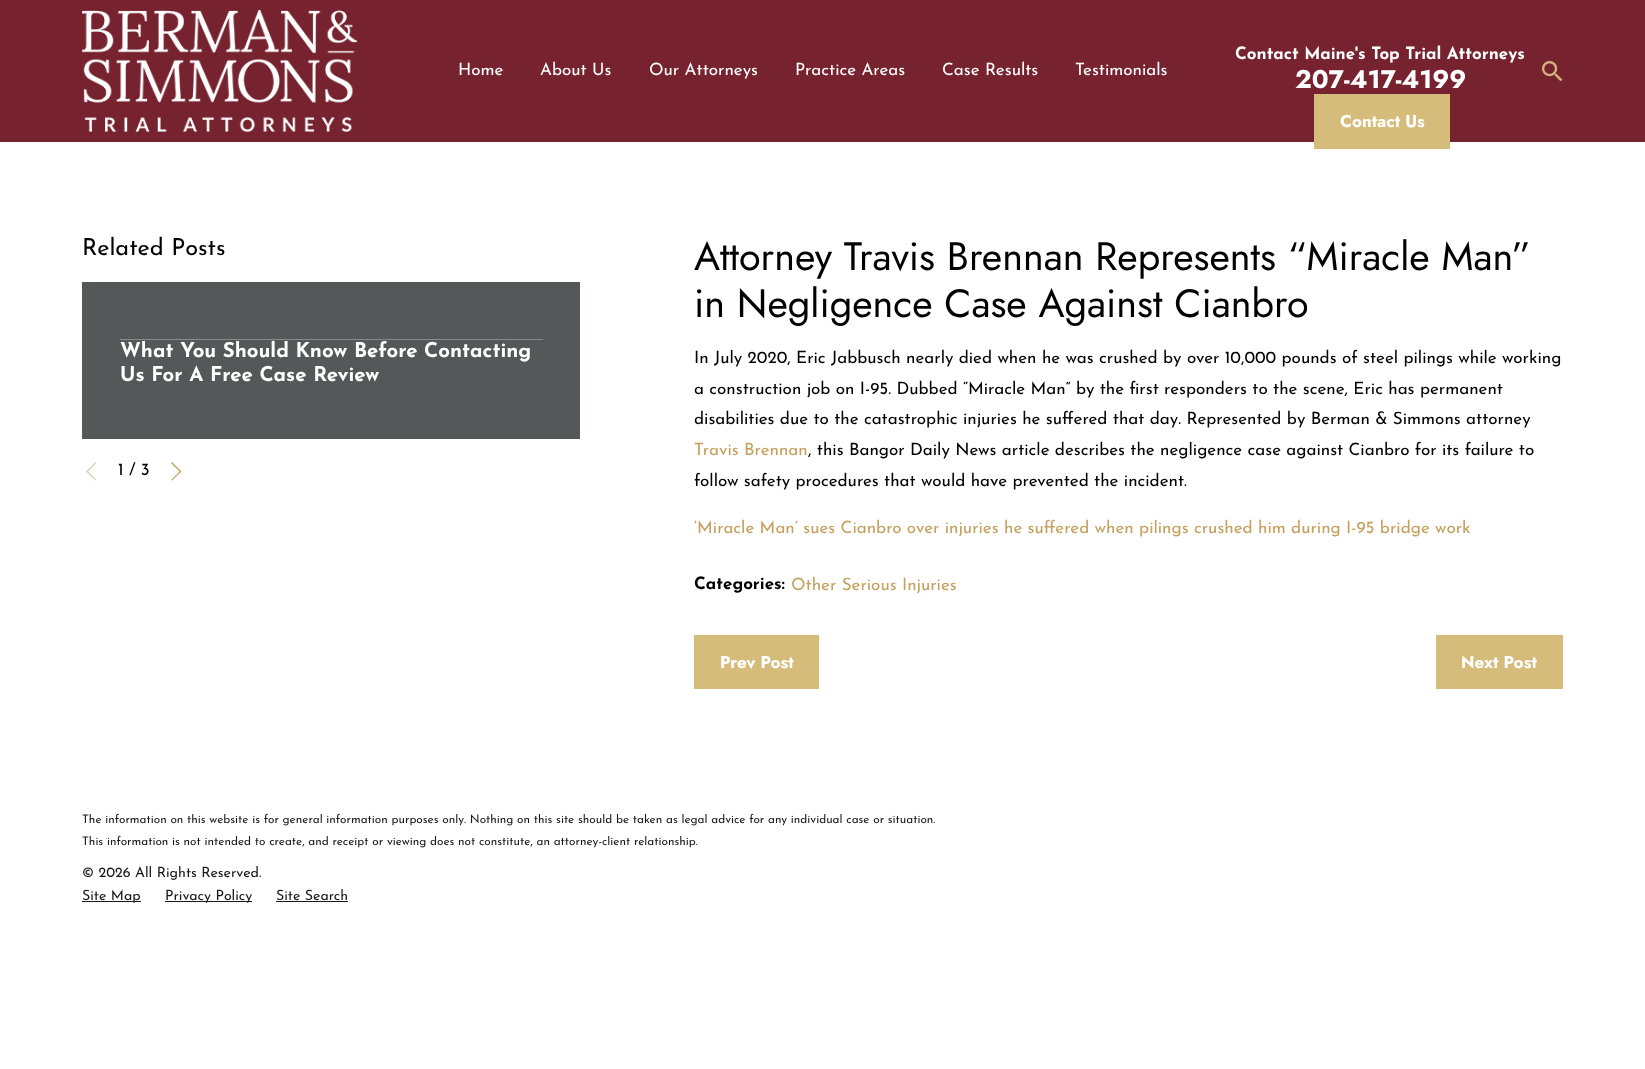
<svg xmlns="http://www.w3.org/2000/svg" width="1645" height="1069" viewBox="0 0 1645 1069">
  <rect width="100%" height="100%" fill="#ffffff"/>
  <rect x="0" y="0" width="1645" height="142" fill="#76232f"/>
  <image x="82" y="10" width="275" height="122" href="img1.png"/>
  <text x="458" y="75" font-family="Josefin Sans" font-size="17" fill="#ffffff">Home</text>
  <text x="540" y="75" font-family="Josefin Sans" font-size="17" fill="#ffffff">About Us</text>
  <text x="649" y="75" font-family="Josefin Sans" font-size="17" fill="#ffffff">Our Attorneys</text>
  <text x="795" y="75" font-family="Josefin Sans" font-size="17" fill="#ffffff">Practice Areas</text>
  <text x="942" y="75" font-family="Josefin Sans" font-size="17" fill="#ffffff">Case Results</text>
  <text x="1075" y="75" font-family="Josefin Sans" font-size="17" fill="#ffffff">Testimonials</text>
  <text x="1235" y="59" font-family="Josefin Sans" font-size="17" font-weight="bold" fill="#ffffff">Contact Maine's Top Trial Attorneys</text>
  <text x="1295" y="88" font-family="Jost" font-size="25.5" font-weight="bold" fill="#ffffff">207-417-4199</text>
  <image x="1542" y="61" width="21" height="20" href="img2.png"/>
  <rect x="1314" y="94" width="136" height="55" fill="#d5bc7a"/>
  <text x="1340" y="127" font-family="Jost" font-size="17" font-weight="bold" fill="#ffffff">Contact Us</text>
  <text x="82" y="255" font-family="Josefin Sans" font-size="23.5" fill="#000000">Related Posts</text>
  <rect x="82" y="282" width="498" height="157" fill="#545859"/>
  <rect x="120" y="339" width="423" height="1" fill="#878a8b"/>
  <text x="120" y="357" font-family="Josefin Sans" font-size="20.4" font-weight="bold" fill="#ffffff">What You Should Know Before Contacting</text>
  <text x="120" y="381" font-family="Josefin Sans" font-size="20.4" font-weight="bold" fill="#ffffff">Us For A Free Case Review</text>
  <path d="M95.5 480.5L86 471.5L95.5 462L96.5 463L88 471.5L96.5 480Z" fill="#e2d0af"/>
  <text x="118" y="475" font-family="Josefin Sans" font-size="17" fill="#000000">1 / 3</text>
  <path d="M172 462L181.5 471.5L172 480.5L171 480L179.5 471.5L171 463Z" fill="#c5a05e"/>
  <text x="694" y="270" font-family="Jost" font-size="39.5" fill="#000000">Attorney Travis Brennan Represents “Miracle Man”</text>
  <text x="694" y="317" font-family="Jost" font-size="39.5" fill="#000000">in Negligence Case Against Cianbro</text>
  <text x="694" y="363" font-family="Josefin Sans" font-size="17" fill="#000000">In July 2020, Eric Jabbusch nearly died when he was crushed by over 10,000 pounds of steel pilings while working</text>
  <text x="694" y="394" font-family="Josefin Sans" font-size="17" fill="#000000">a construction job on I-95. Dubbed “Miracle Man” by the first responders to the scene, Eric has permanent</text>
  <text x="694" y="424" font-family="Josefin Sans" font-size="17" fill="#000000">disabilities due to the catastrophic injuries he suffered that day. Represented by Berman &amp; Simmons attorney</text>
  <text x="694" y="455" font-family="Josefin Sans" font-size="17" fill="#c5a05e">Travis Brennan</text>
  <text x="808" y="455" font-family="Josefin Sans" font-size="17" fill="#000000">, this Bangor Daily News article describes the negligence case against Cianbro for its failure to</text>
  <text x="694" y="486" font-family="Josefin Sans" font-size="17" fill="#000000">follow safety procedures that would have prevented the incident.</text>
  <text x="694" y="533" font-family="Josefin Sans" font-size="17" fill="#c5a05e">‘Miracle Man’ sues Cianbro over injuries he suffered when pilings crushed him during I-95 bridge work</text>
  <text x="694" y="589" font-family="Josefin Sans" font-size="17" font-weight="bold" fill="#000000">Categories:</text>
  <text x="791" y="590" font-family="Josefin Sans" font-size="17" fill="#c5a05e">Other Serious Injuries</text>
  <rect x="694" y="635" width="125" height="54" fill="#d5bc7a"/>
  <text x="720" y="668" font-family="Jost" font-size="17" font-weight="bold" fill="#ffffff">Prev Post</text>
  <rect x="1436" y="635" width="127" height="54" fill="#d5bc7a"/>
  <text x="1461" y="668" font-family="Jost" font-size="17" font-weight="bold" fill="#ffffff">Next Post</text>
  <text x="82" y="823" font-family="Josefin Sans" font-size="11.8" fill="#191919">The information on this website is for general information purposes only. Nothing on this site should be taken as legal advice for any individual case or situation.</text>
  <text x="82" y="845" font-family="Josefin Sans" font-size="11.8" fill="#191919">This information is not intended to create, and receipt or viewing does not constitute, an attorney-client relationship.</text>
  <text x="82" y="877" font-family="Josefin Sans" font-size="14.2" fill="#191919">© 2026 All Rights Reserved.</text>
  <rect x="82" y="901" width="59" height="1" fill="#191919"/>
  <text x="82" y="900" font-family="Josefin Sans" font-size="14.2" fill="#191919">Site Map</text>
  <rect x="165" y="901" width="87" height="1" fill="#191919"/>
  <text x="165" y="900" font-family="Josefin Sans" font-size="14.2" fill="#191919">Privacy Policy</text>
  <text x="276" y="900" font-family="Josefin Sans" font-size="14.2" fill="#191919">Site Search</text>
  <rect x="276" y="901" width="72" height="1" fill="#191919"/>
</svg>
